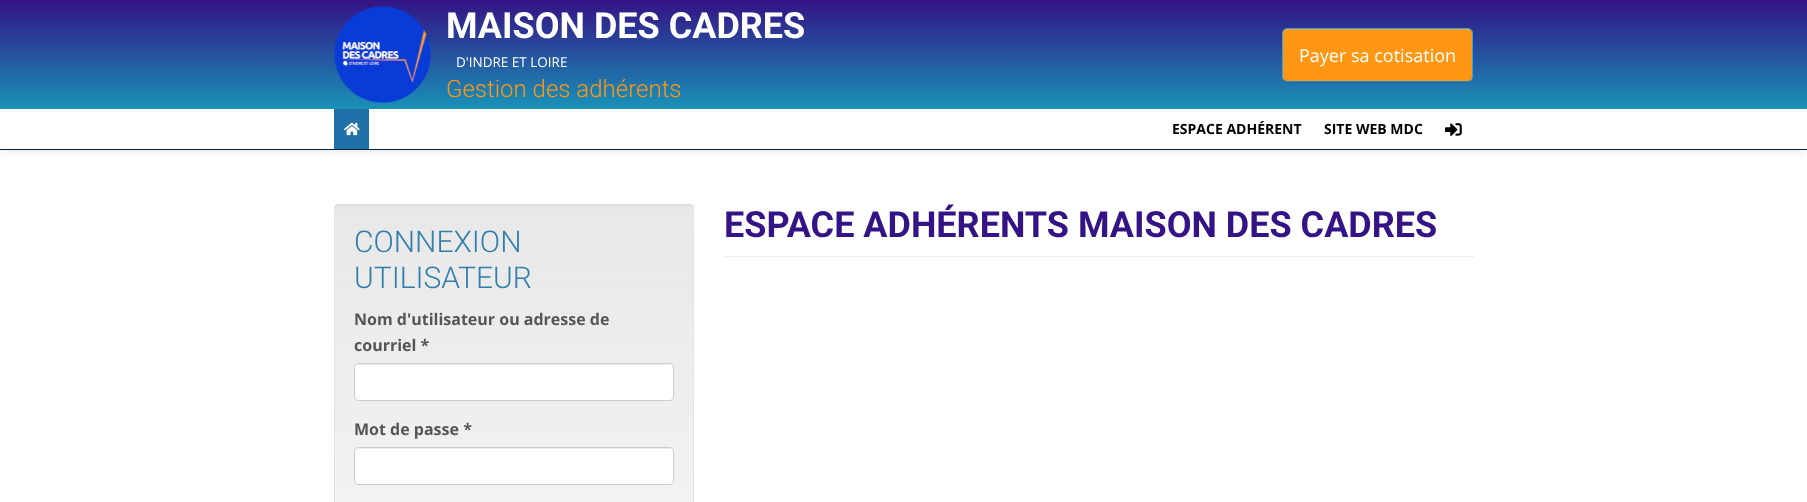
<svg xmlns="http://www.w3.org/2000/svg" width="1807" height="502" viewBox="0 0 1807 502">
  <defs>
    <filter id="blur1" x="-50%" y="-200%" width="200%" height="500%"><feGaussianBlur stdDeviation="5"/></filter>
    <linearGradient id="g1" gradientUnits="userSpaceOnUse" x1="904" y1="0" x2="904" y2="149"><stop offset="0" stop-color="#331385"/><stop offset="1" stop-color="#10c0ca"/></linearGradient>
    <filter id="blur2" x="-50%" y="-200%" width="200%" height="500%"><feGaussianBlur stdDeviation="0.5"/></filter>
    <clipPath id="clip1"><rect x="334" y="204" width="360" height="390" rx="4"/></clipPath>
    <linearGradient id="g2" gradientUnits="userSpaceOnUse" x1="514" y1="205" x2="514" y2="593"><stop offset="0" stop-color="#e8e8e8"/><stop offset="1" stop-color="#f5f5f5"/></linearGradient>
  </defs>
  <rect width="100%" height="100%" fill="#ffffff"/>
  <rect x="0" y="1" width="1807" height="150" fill="#000000" fill-opacity="0.1" filter="url(#blur1)"/>
  <rect x="0" y="0" width="1807" height="109" fill="url(#g1)"/>
  <rect x="0" y="149" width="1807" height="1" fill="#022241"/>
  <image x="334" y="6" width="97" height="97" href="img1.png"/>
  <text x="446" y="38" font-family="Roboto" font-size="36" font-weight="bold" fill="#ffffff">MAISON DES CADRES</text>
  <text x="456" y="67" font-family="Open Sans" font-size="13.5" fill="#ffffff">D'INDRE ET LOIRE</text>
  <text x="446" y="97" font-family="Roboto" font-size="24" font-weight="300" fill="#ff9715">Gestion des adhérents</text>
  <rect x="1282" y="29" width="191" height="54" rx="6" fill="#000000" fill-opacity="0.07" filter="url(#blur2)"/>
  <rect x="1282" y="28" width="191" height="54" rx="6" fill="#ff9715"/>
  <path d="M1288 30H1467C1470 30 1472 32 1472 35C1472 32 1471 30 1468 29H1287C1284 30 1283 32 1283 35C1283 32 1285 30 1288 30Z" fill="#ffa738"/>
  <path d="M1471 80C1470 81 1468.5 81.5 1467 81.5H1288C1286.5 81.5 1285 81 1284 80" fill="none" stroke="#178acc"/>
  <path d="M1284 80C1283 79 1282.5 77.5 1282.5 76V34C1282.5 32.5 1283 31 1284 30C1285 29 1286.5 28.5 1288 28.5H1467C1468.5 28.5 1470 29 1471 30C1472 31 1472.5 32.5 1472.5 34V76C1472.5 77.5 1472 79 1471 80" fill="none" stroke="#2fa4e7"/>
  <text x="1299" y="62" font-family="Open Sans" font-size="18" fill="#ffffff">Payer sa cotisation</text>
  <rect x="0" y="109" width="1807" height="40" fill="#ffffff"/>
  <rect x="334" y="109" width="35" height="40" fill="#2071aa"/>
  <image x="344" y="122" width="16" height="14" href="img2.png"/>
  <text x="1172" y="134" font-family="Open Sans" font-size="14" font-weight="bold" fill="#000000">ESPACE ADHÉRENT</text>
  <text x="1324" y="134" font-family="Open Sans" font-size="14" font-weight="bold" fill="#000000">SITE WEB MDC</text>
  <image x="1445" y="123" width="17" height="13" href="img3.png"/>
  <rect x="724" y="256" width="750" height="1" fill="#eeeeee"/>
  <text x="724" y="237" font-family="Roboto" font-size="36" font-weight="bold" fill="#331385">ESPACE ADHÉRENTS MAISON DES CADRES</text>
  <g clip-path="url(#clip1)">
    <rect x="334" y="205" width="360" height="297" fill="url(#g2)"/>
  </g>
  <path d="M338 206H690C692 206 693 207 693 209C693 207 692 205 690 205H338L336 206L335 209C335 207 336 206 338 206Z" fill="#dcdcdc"/>
  <rect x="334.5" y="204.5" width="359" height="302" rx="3.5" fill="none" stroke="#e3e3e3"/>
  <text x="354" y="252" font-family="Roboto" font-size="30" font-weight="300" fill="#317eac">CONNEXION</text>
  <text x="354" y="288" font-family="Roboto" font-size="30" font-weight="300" fill="#317eac">UTILISATEUR</text>
  <text x="354" y="325" font-family="Open Sans" font-size="16" font-weight="bold" fill="#555555">Nom d'utilisateur ou adresse de</text>
  <text x="354" y="351" font-family="Open Sans" font-size="16" font-weight="bold" fill="#555555">courriel *</text>
  <rect x="354" y="363" width="320" height="38" rx="4" fill="#ffffff"/>
  <path d="M358 365H670C672 365 673 366 673 368L672 365L671 364H358C356 364 355 366 355 368C355 366 356 365 358 365Z" fill="#ececec"/>
  <rect x="354.5" y="363.5" width="319" height="37" rx="3.5" fill="none" stroke="#cccccc"/>
  <text x="354" y="435" font-family="Open Sans" font-size="16" font-weight="bold" fill="#555555">Mot de passe *</text>
  <rect x="354" y="447" width="320" height="38" rx="4" fill="#ffffff"/>
  <path d="M358 449H670C672 449 673 450 673 452L672 449L671 448H358C356 448 355 450 355 452C355 450 356 449 358 449Z" fill="#ececec"/>
  <rect x="354.5" y="447.5" width="319" height="37" rx="3.5" fill="none" stroke="#cccccc"/>
</svg>
